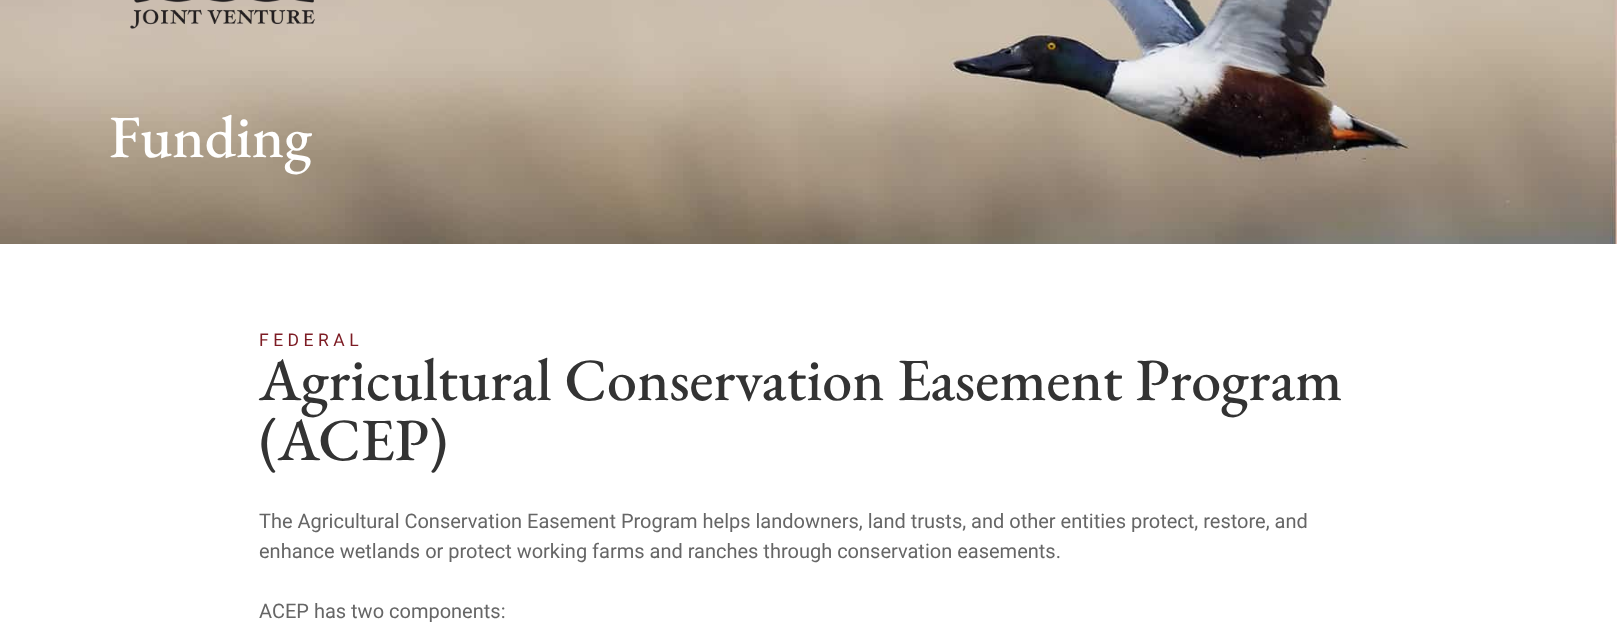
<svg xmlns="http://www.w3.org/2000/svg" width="1617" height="629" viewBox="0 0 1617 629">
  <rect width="100%" height="100%" fill="#ffffff"/>
  <image x="0" y="0" width="1617" height="244" href="img2.png"/>
  <image x="130" y="0" width="185" height="29" href="img1.png"/>
  <text x="109" y="157" font-family="EB Garamond" font-size="60" font-weight="500" fill="#ffffff">Funding</text>
  <text x="259" y="346" font-family="Roboto" font-size="17.5" letter-spacing="4.5" fill="#7d1c24">FEDERAL</text>
  <text x="259" y="400" font-family="EB Garamond" font-size="60" font-weight="500" fill="#333333">Agricultural Conservation Easement Program</text>
  <text x="259" y="460" font-family="EB Garamond" font-size="60" font-weight="500" fill="#333333">(ACEP)</text>
  <text x="259" y="528" font-family="Roboto" font-size="20" fill="#666666">The Agricultural Conservation Easement Program helps landowners, land trusts, and other entities protect, restore, and</text>
  <text x="259" y="558" font-family="Roboto" font-size="20" fill="#666666">enhance wetlands or protect working farms and ranches through conservation easements.</text>
  <text x="259" y="618" font-family="Roboto" font-size="20" fill="#666666">ACEP has two components:</text>
</svg>
